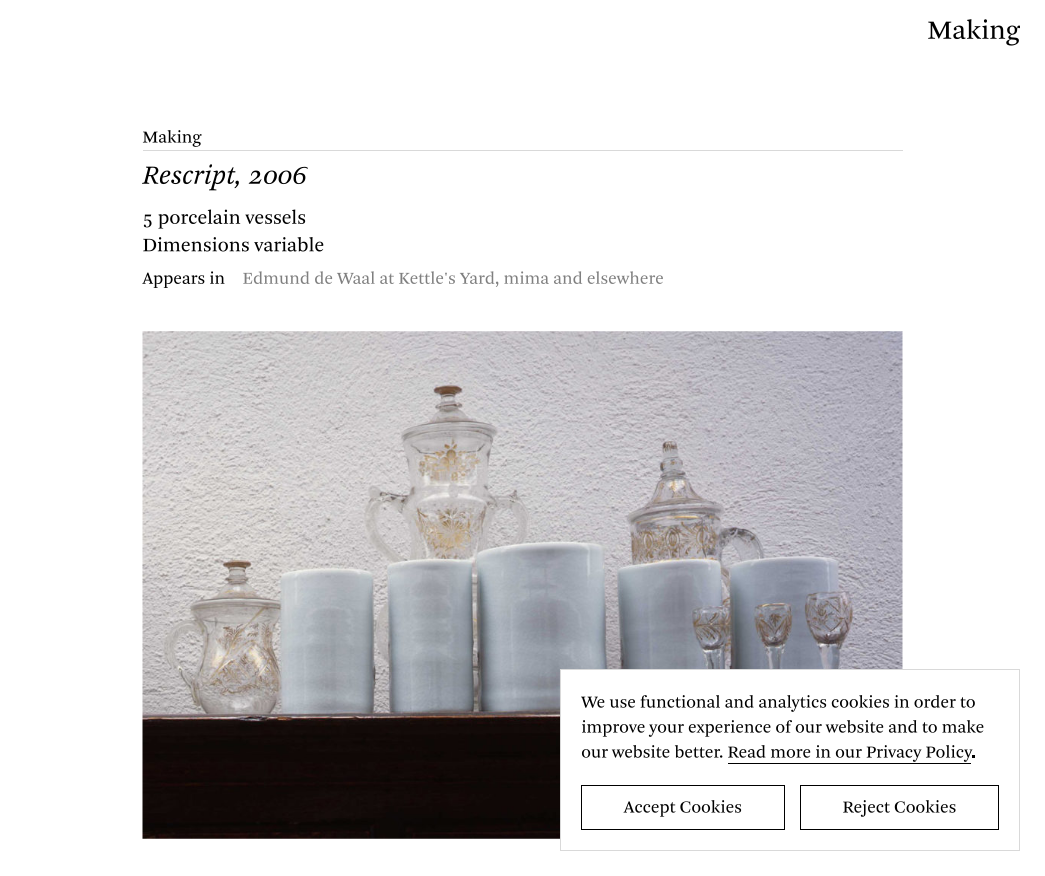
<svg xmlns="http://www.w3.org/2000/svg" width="1045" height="876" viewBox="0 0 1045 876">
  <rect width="100%" height="100%" fill="#ffffff"/>
  <image x="928" y="19" width="92" height="27" href="img1.png"/>
  <image x="142" y="130" width="60" height="17" href="img2.png"/>
  <rect x="143" y="150" width="760" height="1" fill="#d9d9d9"/>
  <image x="142" y="164" width="94" height="27" href="img3.png"/>
  <image x="234" y="166" width="74" height="23" href="img4.png"/>
  <image x="143" y="209" width="163" height="20" href="img5.png"/>
  <image x="143" y="237" width="181" height="15" href="img6.png"/>
  <image x="142" y="271" width="83" height="17" href="img7.png"/>
  <image x="243" y="271" width="420" height="16" href="img8.png"/>
  <image x="142" y="331" width="761" height="508" href="img9.png"/>
  <rect x="561" y="670" width="342" height="169" fill="#ffffff"/>
  <rect x="560.5" y="669.5" width="459" height="181" fill="none" stroke="#d9d9d9"/>
  <image x="581" y="695" width="394" height="17" href="img10.png"/>
  <image x="582" y="720" width="402" height="17" href="img11.png"/>
  <image x="581" y="745" width="142" height="13" href="img12.png"/>
  <image x="728" y="745" width="245" height="17" href="img13.png"/>
  <rect x="972" y="755" width="3" height="3" fill="#000000"/>
  <rect x="728" y="763" width="243" height="1" fill="#000000"/>
  <rect x="581.5" y="785.5" width="203" height="44" fill="none" stroke="#000000"/>
  <image x="623" y="800" width="119" height="17" href="img14.png"/>
  <rect x="800.5" y="785.5" width="198" height="44" fill="none" stroke="#000000"/>
  <image x="843" y="800" width="113" height="17" href="img15.png"/>
</svg>
